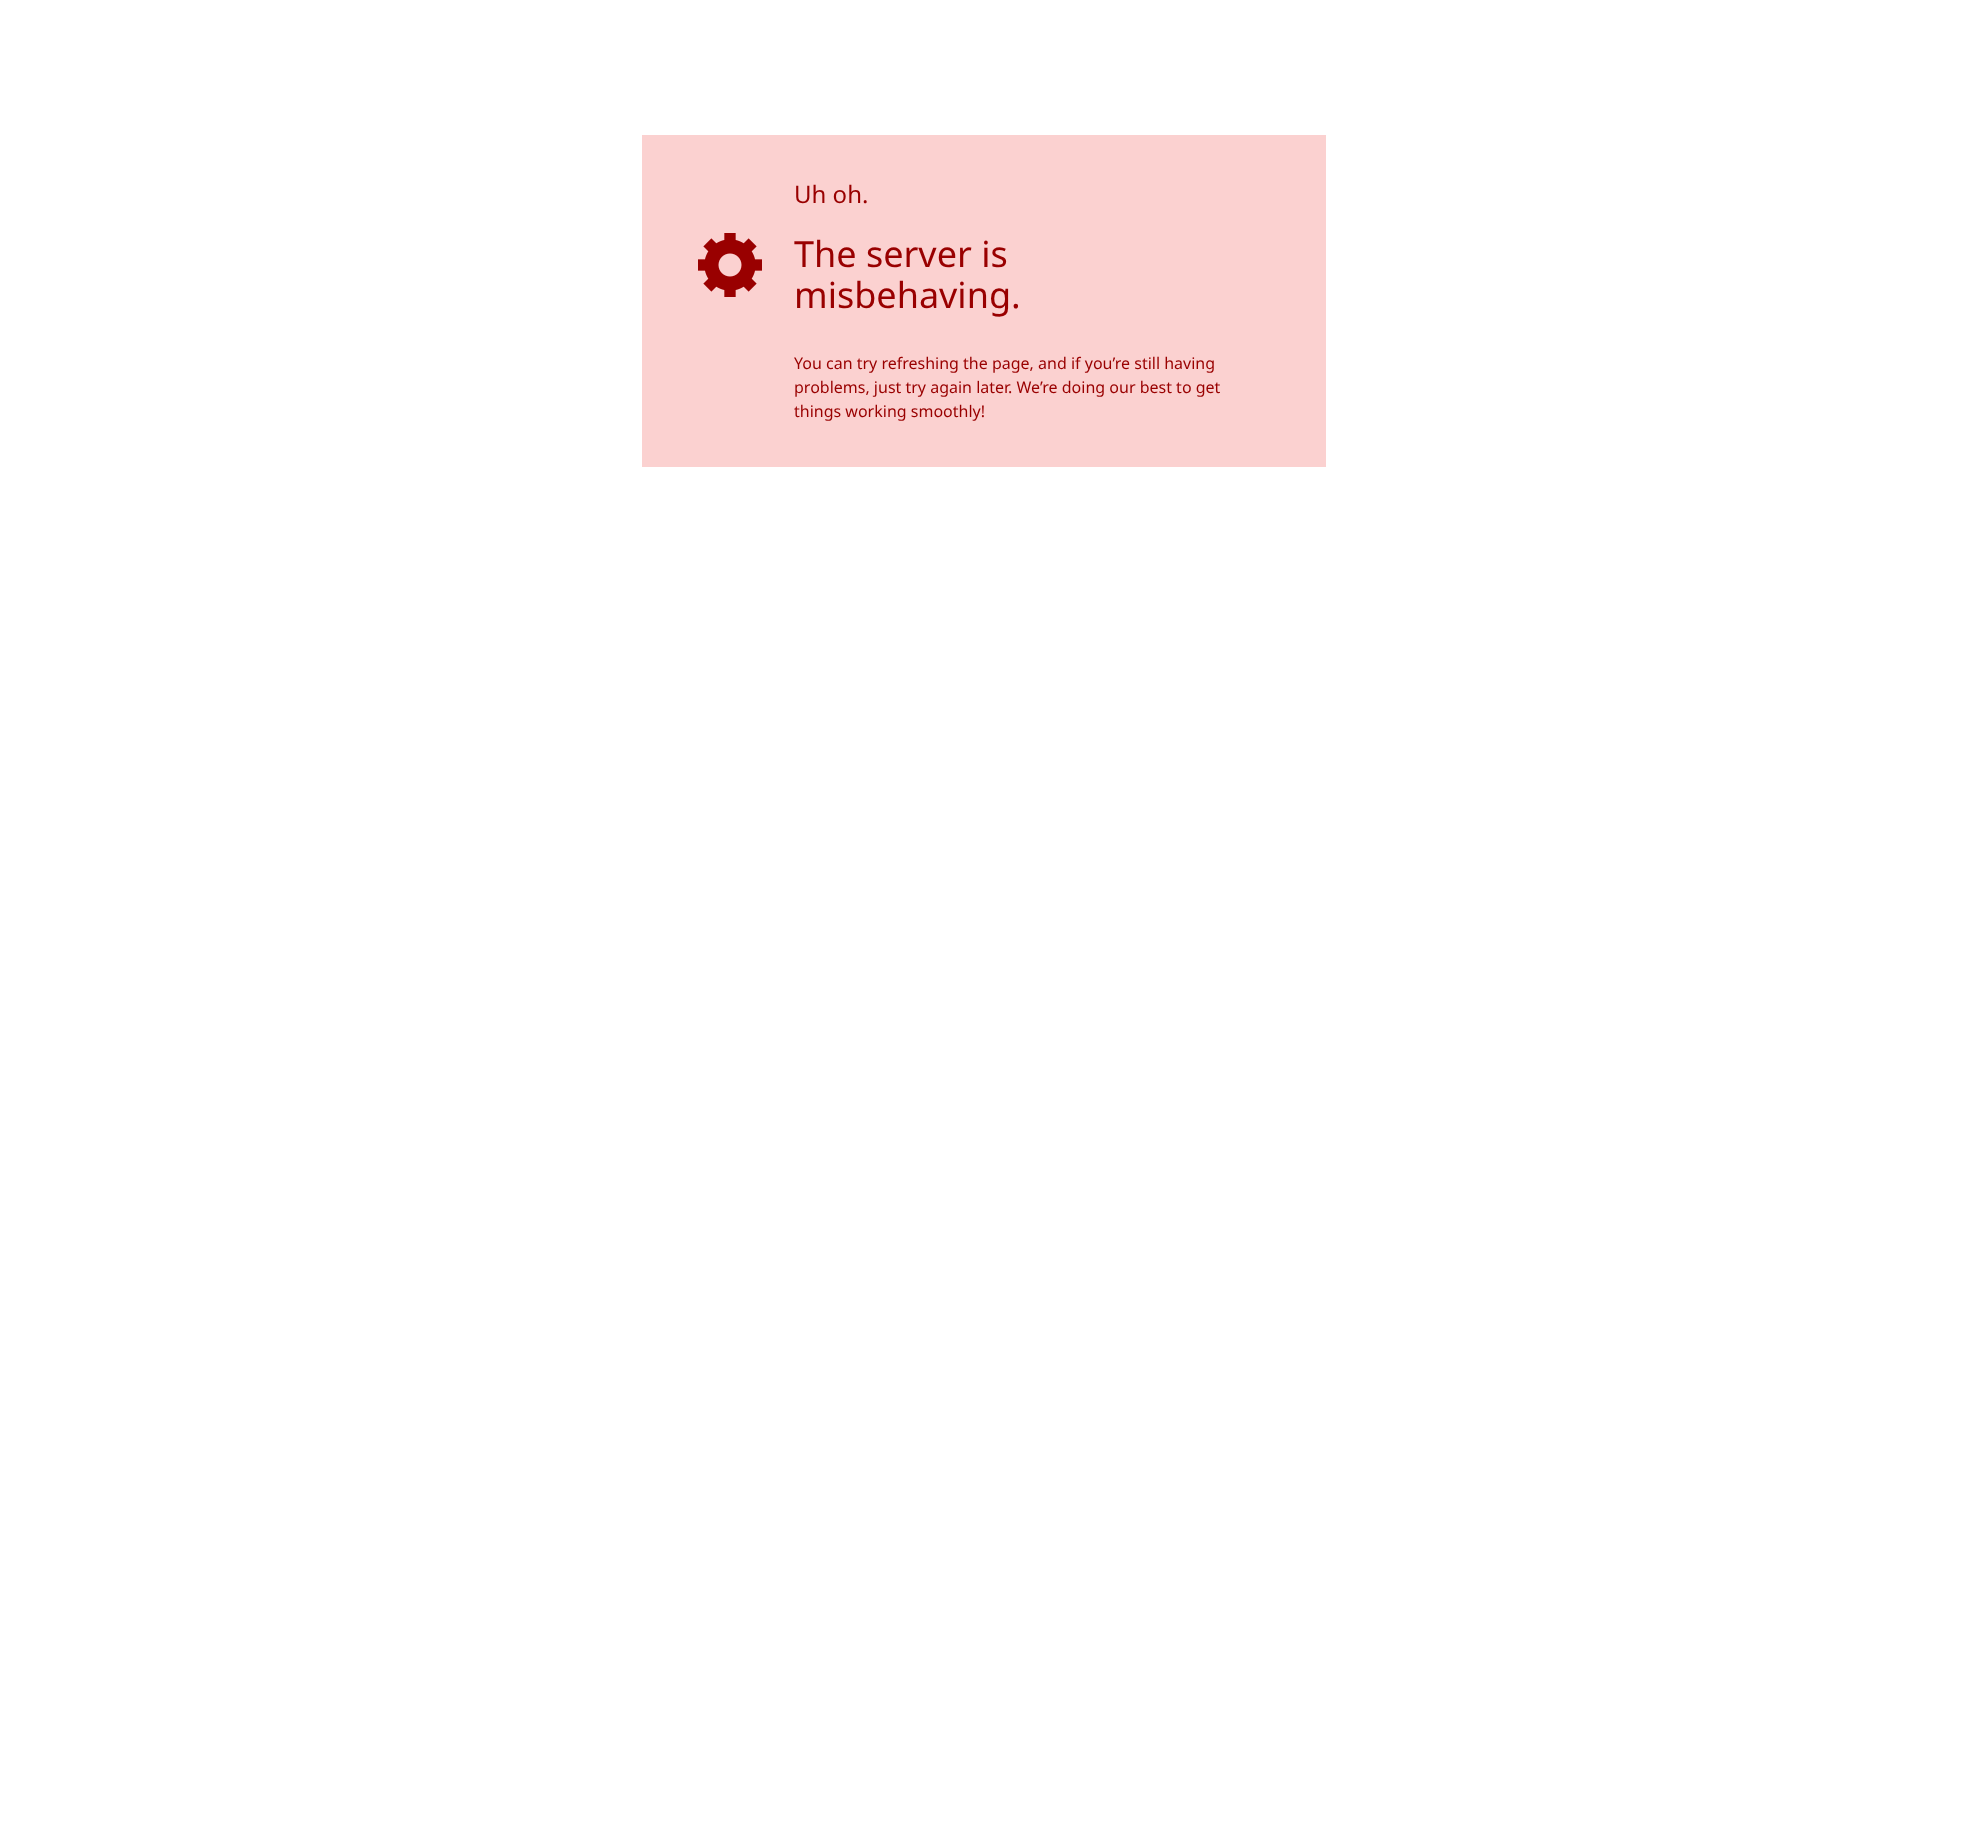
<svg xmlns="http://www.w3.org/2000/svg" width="1968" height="1834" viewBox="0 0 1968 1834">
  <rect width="100%" height="100%" fill="#ffffff"/>
  <rect x="642" y="135" width="684" height="332" fill="#fbd1d0"/>
  <text x="794" y="203" font-family="Noto Sans" font-size="24" fill="#990000">Uh oh.</text>
  <image x="698" y="233" width="64" height="64" href="img1.png"/>
  <text x="794" y="267" font-family="Noto Sans" font-size="36" fill="#990000">The server is</text>
  <text x="794" y="308" font-family="Noto Sans" font-size="36" fill="#990000">misbehaving.</text>
  <text x="794" y="369" font-family="Noto Sans" font-size="16" fill="#990000">You can try refreshing the page, and if you’re still having</text>
  <text x="794" y="393" font-family="Noto Sans" font-size="16" fill="#990000">problems, just try again later. We’re doing our best to get</text>
  <text x="794" y="417" font-family="Noto Sans" font-size="16" fill="#990000">things working smoothly!</text>
</svg>
